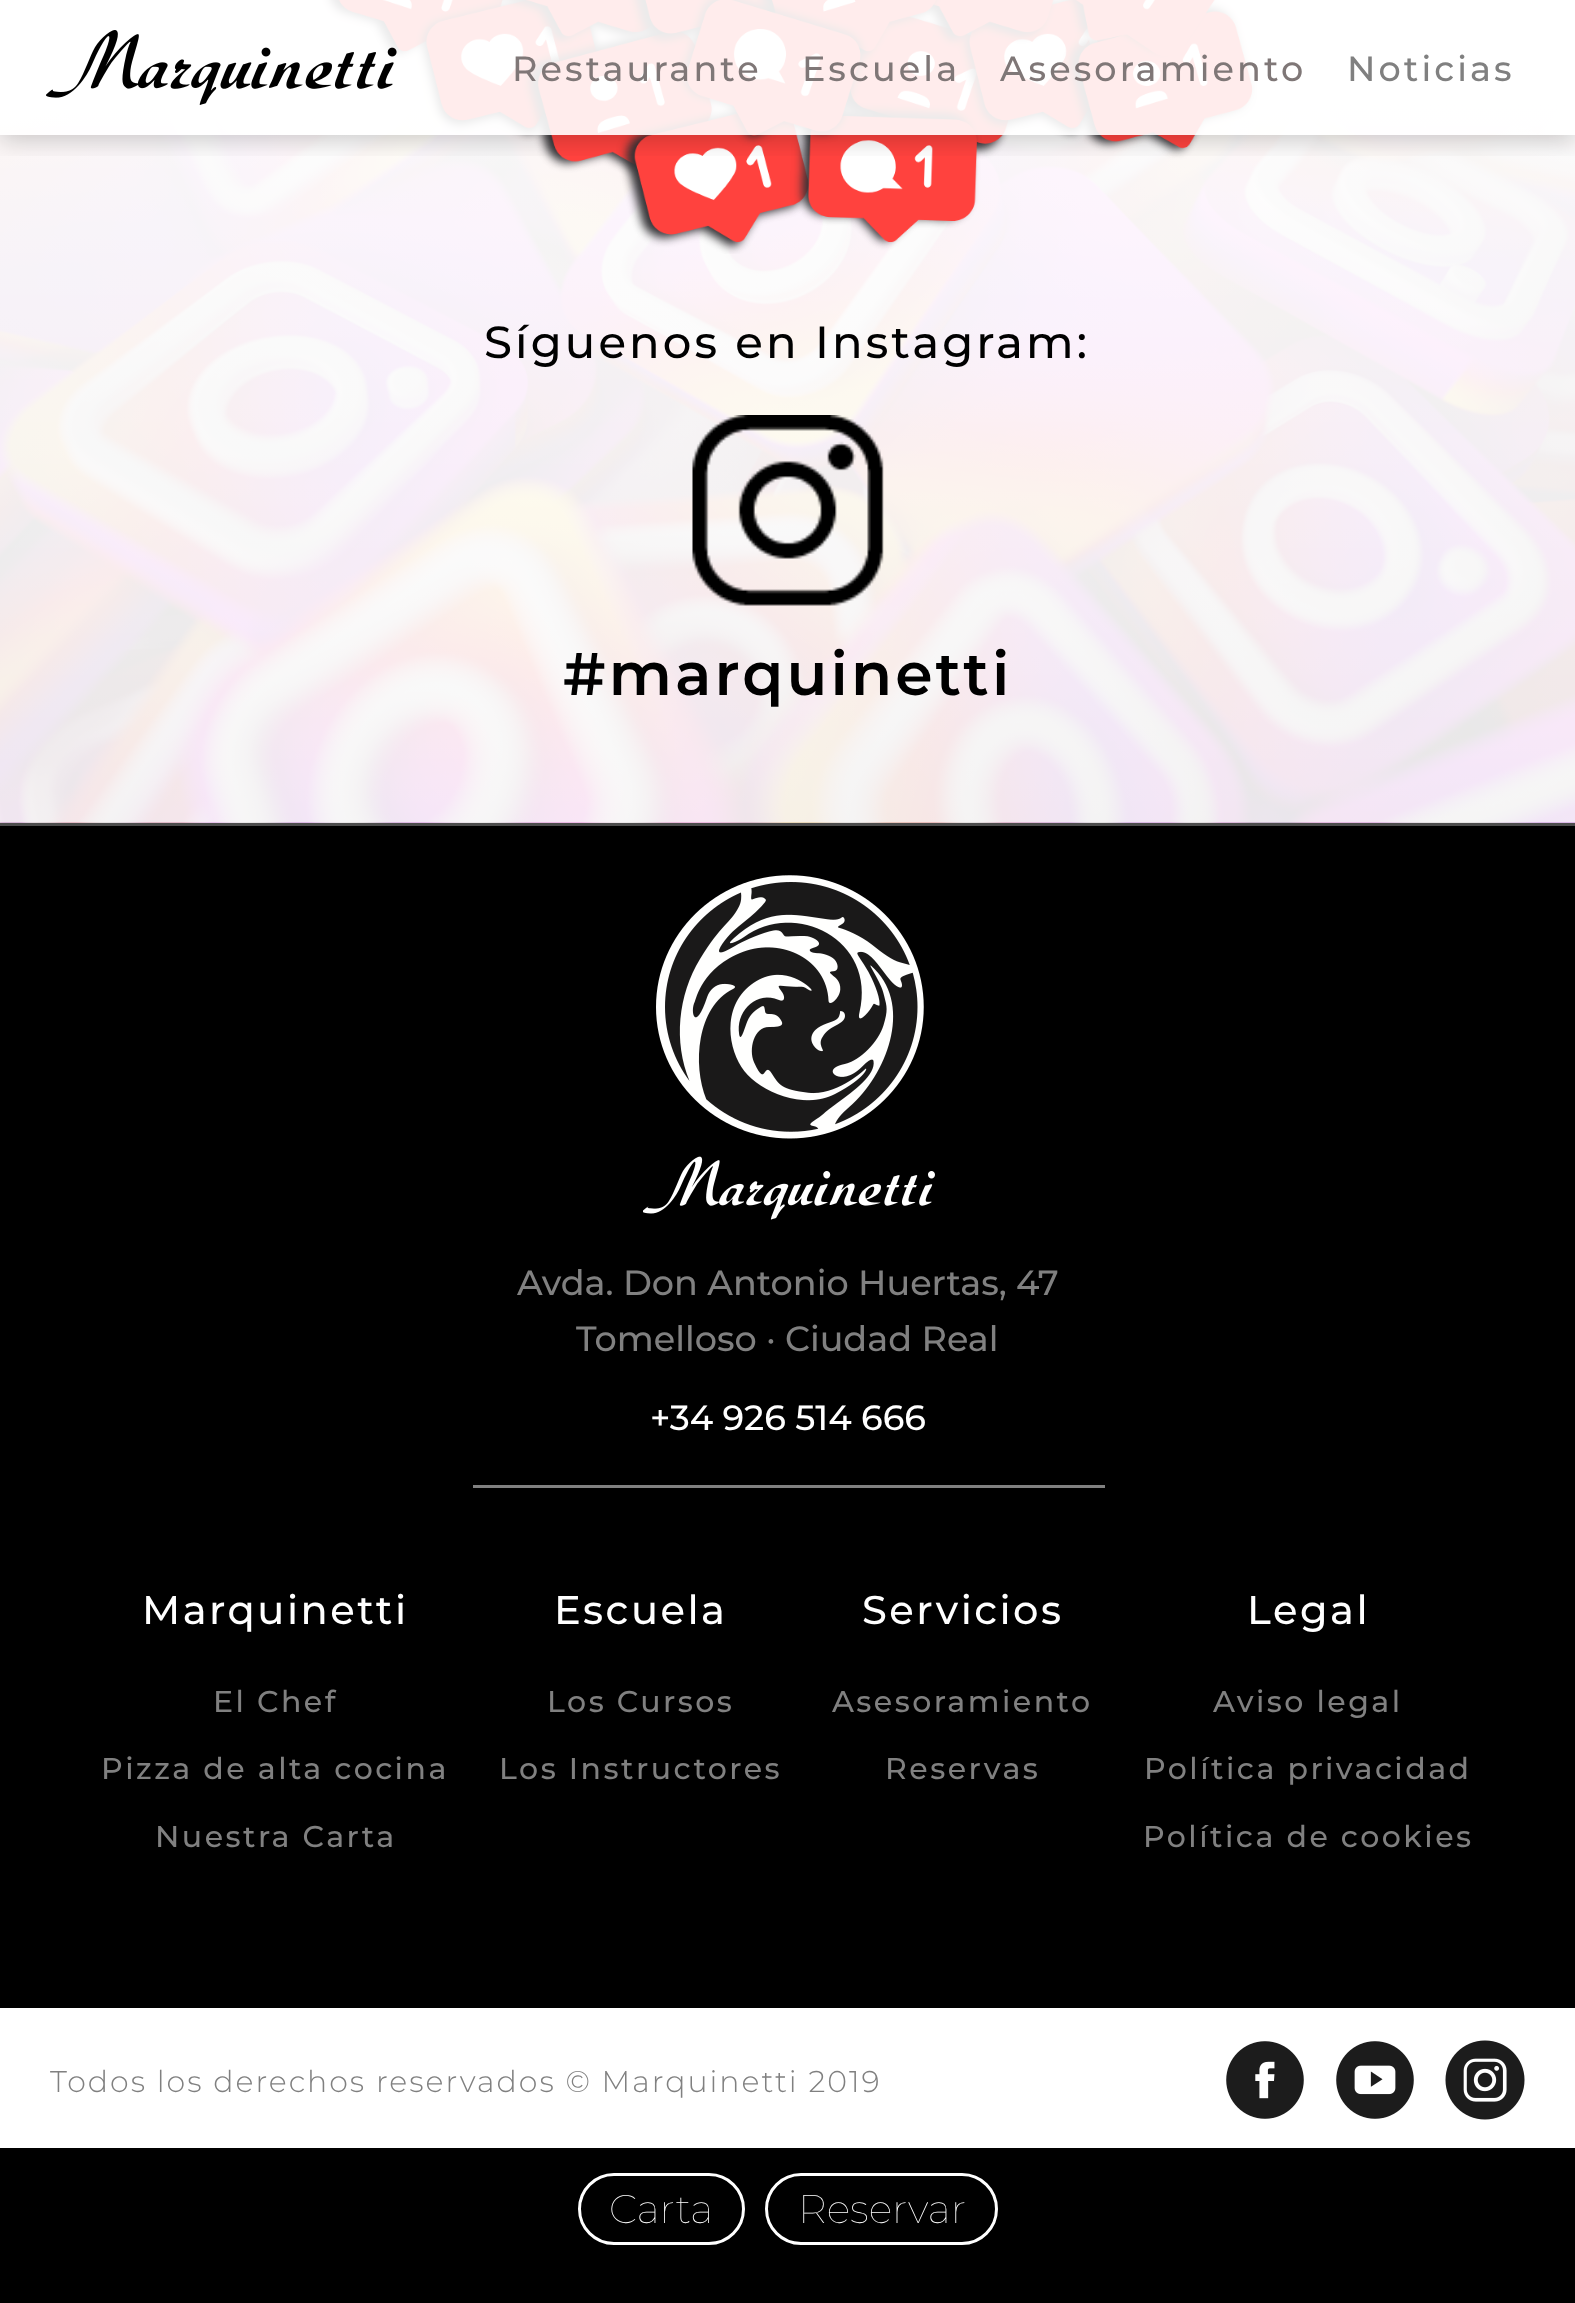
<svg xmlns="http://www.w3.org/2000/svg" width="1575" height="2303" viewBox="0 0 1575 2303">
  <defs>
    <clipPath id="clip1"><rect x="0" y="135" width="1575" height="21"/></clipPath>
    <filter id="blur1" x="-50%" y="-200%" width="200%" height="500%"><feGaussianBlur stdDeviation="12.5"/></filter>
  </defs>
  <rect width="100%" height="100%" fill="#ffffff"/>
  <image x="0" y="0" width="1575" height="823" href="img2.png"/>
  <image x="322" y="0" width="935" height="254" href="img3.png"/>
  <g clip-path="url(#clip1)">
    <rect x="0" y="5" width="1575" height="135" fill="#000000" fill-opacity="0.2" filter="url(#blur1)"/>
  </g>
  <rect x="0" y="0" width="1575" height="135" fill="#ffffff" fill-opacity="0.9"/>
  <image x="46" y="30" width="351" height="75" href="img1.png"/>
  <text x="512" y="81" font-family="Montserrat" font-size="35" font-weight="500" letter-spacing="3.1" fill="#7f7777">Restaurante</text>
  <text x="802" y="81" font-family="Montserrat" font-size="35" font-weight="500" letter-spacing="3.1" fill="#7f7777">Escuela</text>
  <text x="1000" y="81" font-family="Montserrat" font-size="35" font-weight="500" letter-spacing="3.1" fill="#7f7777">Asesoramiento</text>
  <text x="1347" y="81" font-family="Montserrat" font-size="35" font-weight="500" letter-spacing="3.1" fill="#808080">Noticias</text>
  <text x="484" y="358" font-family="Montserrat" font-size="45" font-weight="500" letter-spacing="3.1" fill="#000000">Síguenos en Instagram:</text>
  <image x="692" y="415" width="192" height="191" href="img4.png"/>
  <text x="563" y="695" font-family="Montserrat" font-size="60" font-weight="600" letter-spacing="3.1" fill="#000000">#marquinetti</text>
  <rect x="0" y="826" width="1575" height="1182" fill="#000000"/>
  <rect x="0" y="823" width="1575" height="3" fill="#4d4d4d"/>
  <rect x="473" y="1485" width="632" height="3" fill="#808080"/>
  <image x="643" y="875" width="292" height="345" href="img5.png"/>
  <text x="517" y="1295" font-family="Montserrat" font-size="35" font-weight="500" fill="#808080">Avda. Don Antonio Huertas, 47</text>
  <text x="576" y="1351" font-family="Montserrat" font-size="35" font-weight="500" fill="#808080">Tomelloso · Ciudad Real</text>
  <text x="650" y="1430" font-family="Montserrat" font-size="35" font-weight="500" fill="#ffffff">+34 926 514 666</text>
  <text x="142" y="1624" font-family="Montserrat" font-size="40" font-weight="500" letter-spacing="2.5" fill="#ffffff">Marquinetti</text>
  <text x="213" y="1712" font-family="Montserrat" font-size="30" font-weight="500" letter-spacing="2.5" fill="#808080">El Chef</text>
  <text x="101" y="1779" font-family="Montserrat" font-size="30" font-weight="500" letter-spacing="2.5" fill="#808080">Pizza de alta cocina</text>
  <text x="155" y="1847" font-family="Montserrat" font-size="30" font-weight="500" letter-spacing="2.5" fill="#808080">Nuestra Carta</text>
  <text x="554" y="1624" font-family="Montserrat" font-size="40" font-weight="500" letter-spacing="2.5" fill="#ffffff">Escuela</text>
  <text x="547" y="1712" font-family="Montserrat" font-size="30" font-weight="500" letter-spacing="2.5" fill="#808080">Los Cursos</text>
  <text x="499" y="1779" font-family="Montserrat" font-size="30" font-weight="500" letter-spacing="2.5" fill="#808080">Los Instructores</text>
  <text x="862" y="1624" font-family="Montserrat" font-size="40" font-weight="500" letter-spacing="2.5" fill="#ffffff">Servicios</text>
  <text x="832" y="1712" font-family="Montserrat" font-size="30" font-weight="500" letter-spacing="2.5" fill="#808080">Asesoramiento</text>
  <text x="885" y="1779" font-family="Montserrat" font-size="30" font-weight="500" letter-spacing="2.5" fill="#808080">Reservas</text>
  <text x="1247" y="1624" font-family="Montserrat" font-size="40" font-weight="500" letter-spacing="2.5" fill="#ffffff">Legal</text>
  <text x="1213" y="1712" font-family="Montserrat" font-size="30" font-weight="500" letter-spacing="2.5" fill="#808080">Aviso legal</text>
  <text x="1144" y="1779" font-family="Montserrat" font-size="30" font-weight="500" letter-spacing="2.5" fill="#808080">Política privacidad</text>
  <text x="1143" y="1847" font-family="Montserrat" font-size="30" font-weight="500" letter-spacing="2.5" fill="#808080">Política de cookies</text>
  <text x="50" y="2092" font-family="Montserrat" font-size="30" font-weight="300" letter-spacing="2" fill="#808080">Todos los derechos reservados © Marquinetti 2019</text>
  <image x="1226" y="2041" width="78" height="78" href="img6.png"/>
  <image x="1336" y="2041" width="78" height="78" href="img7.png"/>
  <image x="1445" y="2040" width="80" height="80" href="img8.png"/>
  <rect x="0" y="2148" width="1575" height="155" fill="#000000"/>
  <rect x="579.5" y="2174.5" width="164" height="69" rx="34.5" fill="none" stroke="#ffffff" stroke-width="3"/>
  <text x="609" y="2223" font-family="Montserrat" font-size="40" font-weight="100" fill="#ffffff">Carta</text>
  <rect x="766.5" y="2174.5" width="230" height="69" rx="34.5" fill="none" stroke="#ffffff" stroke-width="3"/>
  <text x="798" y="2223" font-family="Montserrat" font-size="40" font-weight="100" fill="#ffffff">Reservar</text>
</svg>
